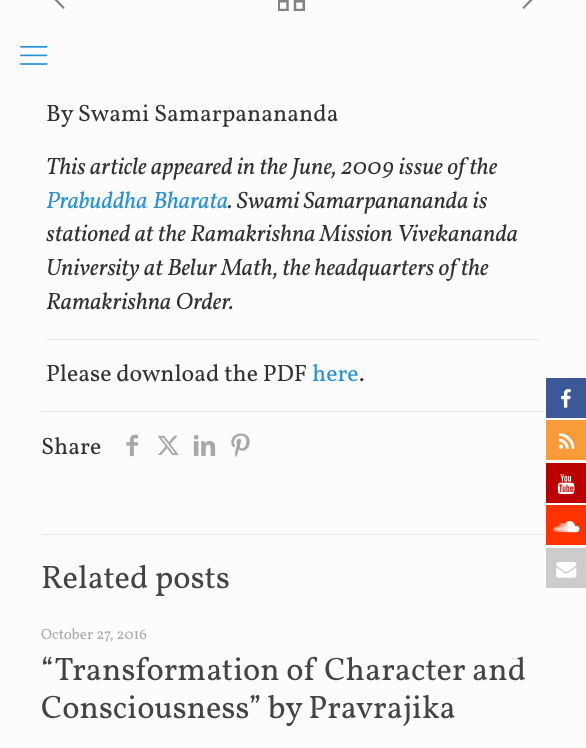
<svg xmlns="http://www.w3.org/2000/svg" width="586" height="748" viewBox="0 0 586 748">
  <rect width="100%" height="100%" fill="#fcfcfc"/>
  <image x="20" y="45" width="28" height="20" href="img1.png"/>
  <image x="54" y="0" width="11" height="9" href="img2.png"/>
  <image x="278" y="0" width="27" height="11" href="img3.png"/>
  <image x="522" y="0" width="11" height="9" href="img4.png"/>
  <text x="46" y="121" font-family="Vollkorn" font-size="23.75" fill="#323232">By Swami Samarpanananda</text>
  <text x="46" y="174" font-family="Vollkorn" font-size="23.75" font-style="italic" fill="#323232">This article appeared in the June, 2009 issue of the</text>
  <text x="46" y="208" word-spacing="1" font-family="Vollkorn" font-size="23.75" font-style="italic" fill="#2991d6">Prabuddha Bharata</text>
  <text x="228" y="208" font-family="Vollkorn" font-size="23.75" font-style="italic" fill="#323232">. Swami Samarpanananda is</text>
  <text x="46" y="241" font-family="Vollkorn" font-size="23.75" font-style="italic" fill="#323232">stationed at the Ramakrishna Mission Vivekananda</text>
  <text x="46" y="275" font-family="Vollkorn" font-size="23.75" font-style="italic" fill="#323232">University at Belur Math, the headquarters of the</text>
  <text x="46" y="309" font-family="Vollkorn" font-size="23.75" font-style="italic" fill="#323232">Ramakrishna Order.</text>
  <rect x="46" y="339" width="494" height="1" fill="#e8e8e8"/>
  <text x="46" y="381" font-family="Vollkorn" font-size="23.75" fill="#323232">Please download the PDF</text>
  <text x="312" y="381" font-family="Vollkorn" font-size="23.75" fill="#2991d6">here</text>
  <text x="359" y="381" font-family="Vollkorn" font-size="23.75" fill="#323232">.</text>
  <rect x="41" y="411" width="504" height="1" fill="#e8e8e8"/>
  <text x="41" y="454" font-family="Vollkorn" font-size="23.75" fill="#323232">Share</text>
  <image x="126" y="434" width="13" height="23" href="img5.png"/>
  <image x="157" y="435" width="22" height="21" href="img6.png"/>
  <image x="193" y="434" width="23" height="22" href="img7.png"/>
  <image x="231" y="433" width="19" height="25" href="img8.png"/>
  <rect x="41" y="534" width="504" height="1" fill="#e8e8e8"/>
  <text x="41" y="588" font-family="Vollkorn" font-size="32.5" fill="#444444">Related posts</text>
  <text x="41" y="639" font-family="Vollkorn" font-size="15" fill="#a8a8a8">October 27, 2016</text>
  <text x="41" y="680" font-family="Vollkorn" font-size="32.5" fill="#444444">“Transformation of Character and</text>
  <text x="41" y="718" font-family="Vollkorn" font-size="32.5" fill="#444444">Consciousness” by Pravrajika</text>
  <rect x="546" y="378" width="40" height="40" fill="#3b5998"/>
  <image x="561" y="389" width="10" height="19" href="img9.png"/>
  <rect x="546" y="420" width="40" height="40" fill="#fa9b39"/>
  <image x="558" y="433" width="17" height="16" href="img10.png"/>
  <rect x="546" y="463" width="40" height="40" fill="#bb0000"/>
  <image x="557" y="474" width="18" height="21" href="img11.png"/>
  <rect x="546" y="505" width="40" height="40" fill="#ff3300"/>
  <image x="553" y="521" width="27" height="12" href="img12.png"/>
  <rect x="546" y="548" width="40" height="40" fill="#cccccc"/>
  <image x="556" y="562" width="21" height="16" href="img13.png"/>
</svg>
